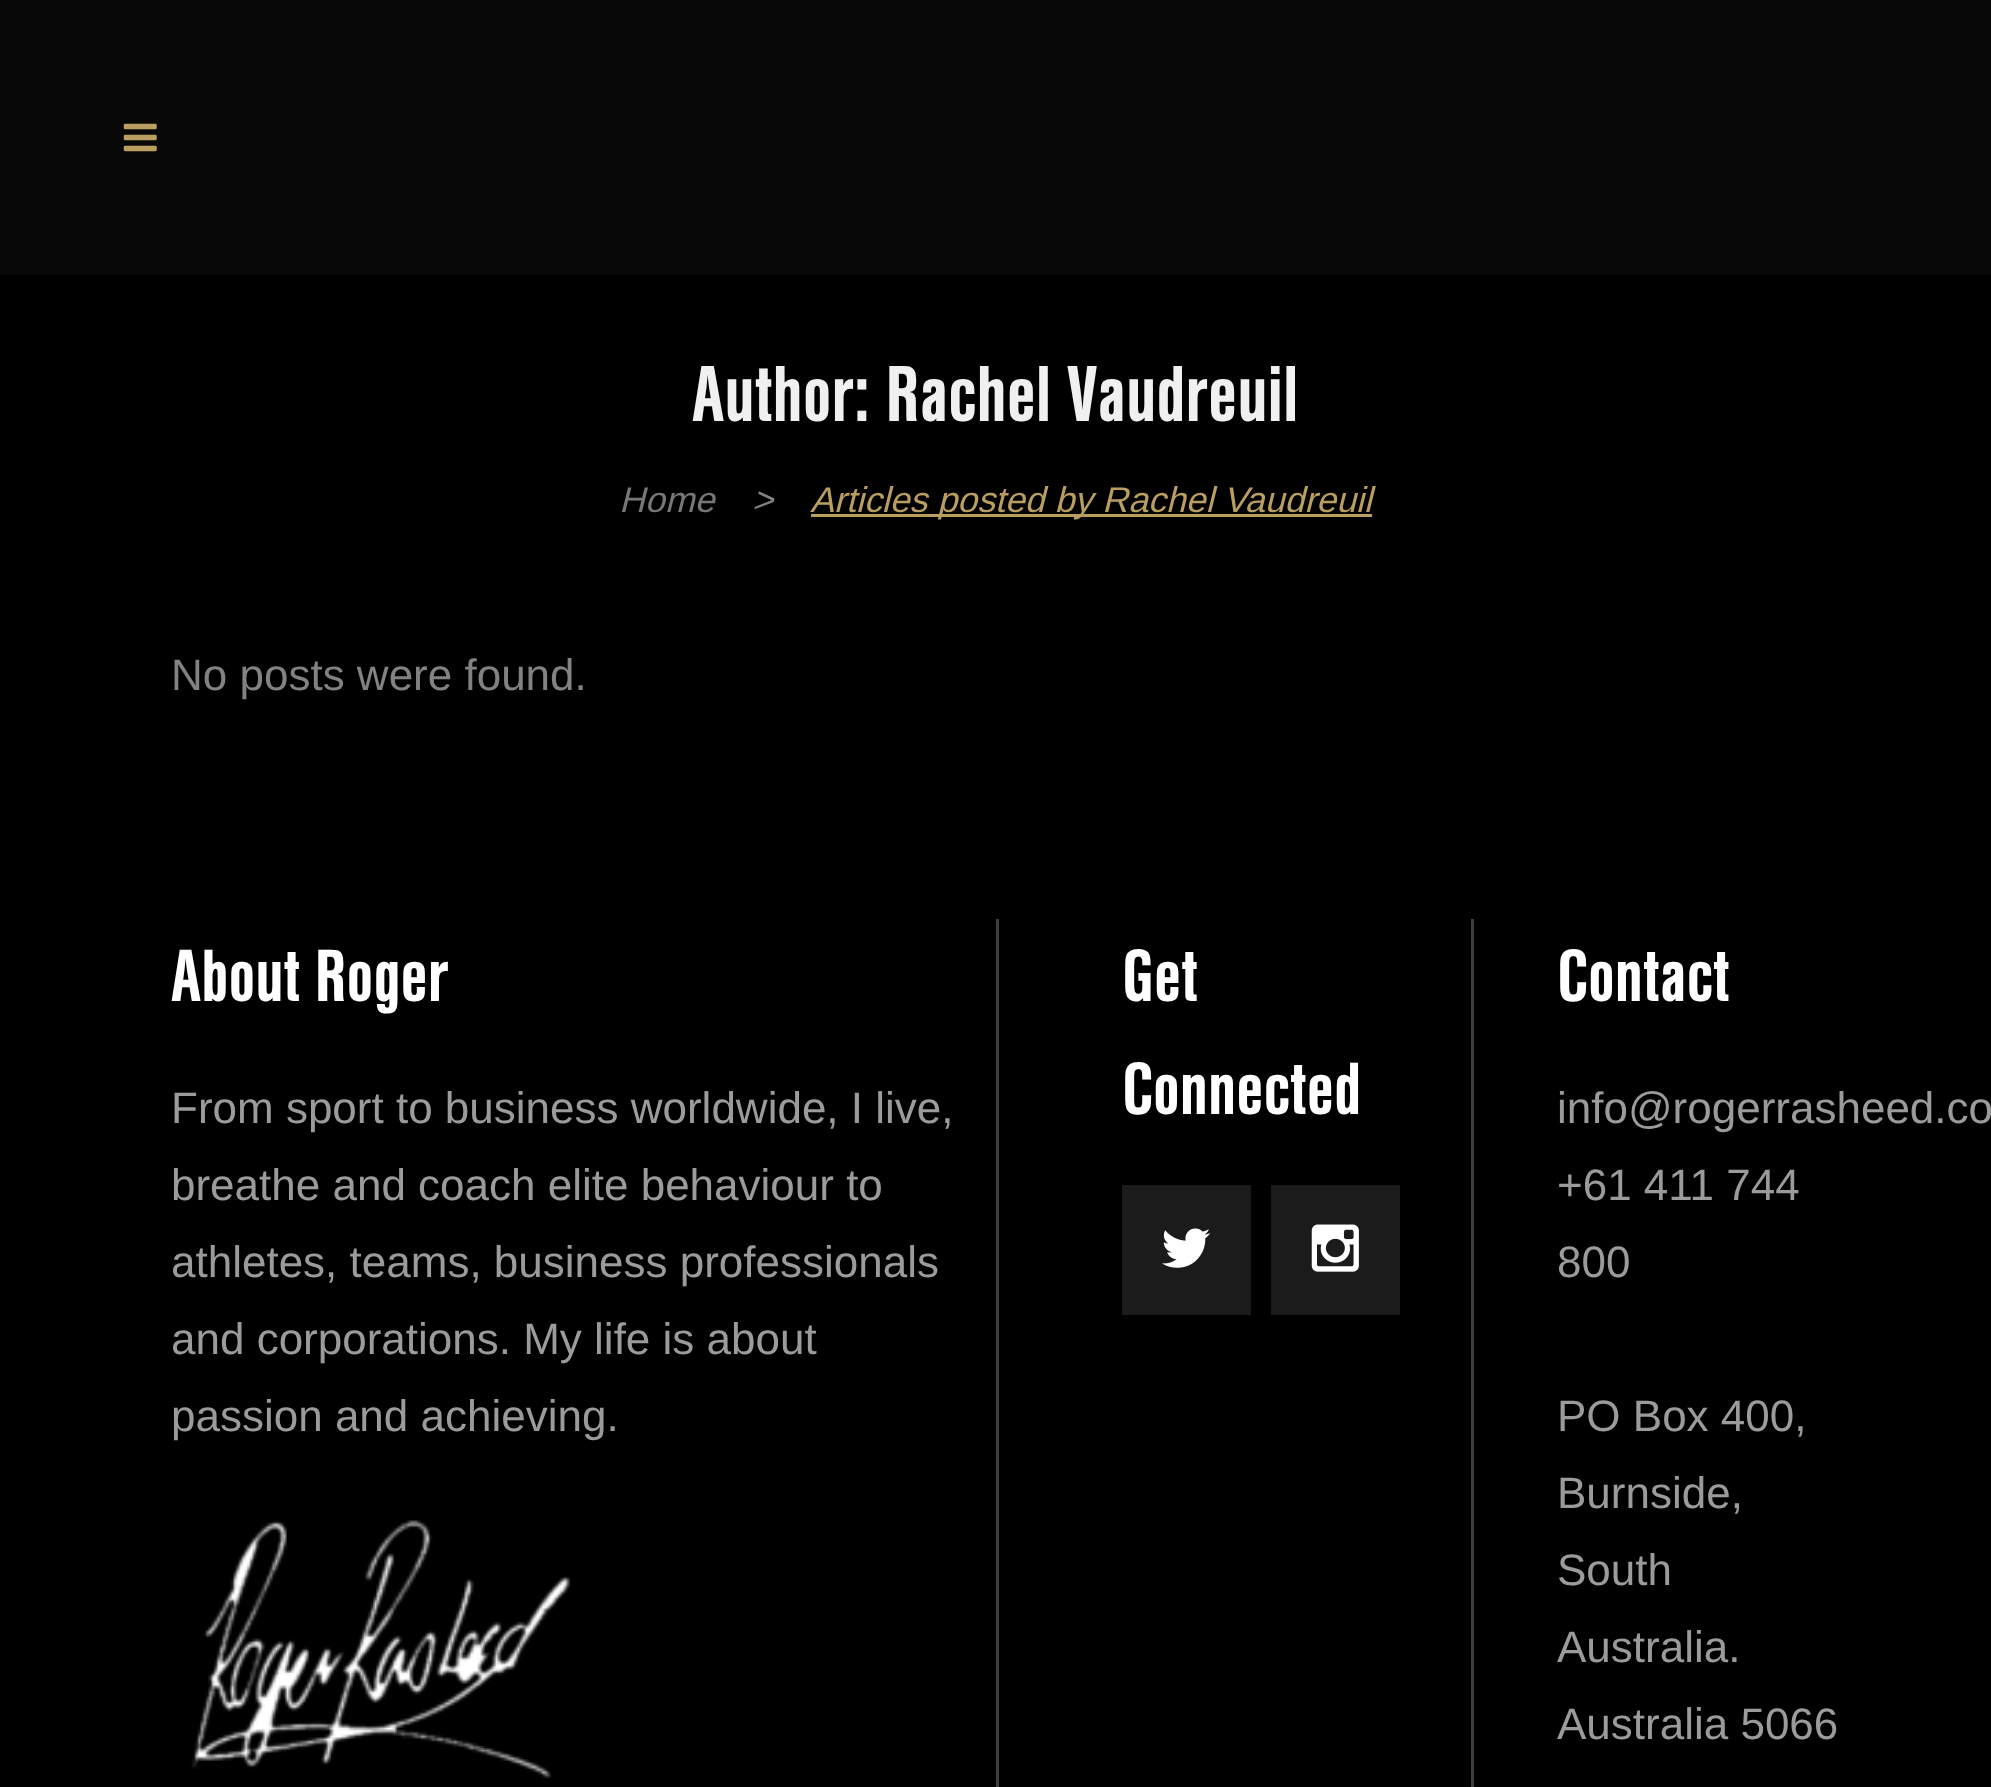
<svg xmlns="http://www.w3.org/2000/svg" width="1991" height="1787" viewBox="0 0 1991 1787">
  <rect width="100%" height="100%" fill="#000000"/>
  <rect x="0" y="0" width="1991" height="275" fill="#080808"/>
  <image x="123" y="123" width="34" height="29" href="img1.png"/>
  <text x="692" y="421" font-family="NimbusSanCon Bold" font-size="82.5" font-weight="bold" fill="#f0f0f0">Author: Rachel Vaudreuil</text>
  <text x="619" y="512" font-family="Arimo" font-size="35.75" font-style="italic" fill="#777777">Home</text>
  <text x="752" y="512" font-family="Arimo" font-size="35.75" font-style="italic" fill="#828282">&gt;</text>
  <rect x="811" y="514" width="561" height="3" fill="#ba9e61"/>
  <text x="810" y="512" font-family="Arimo" font-size="35.75" font-style="italic" fill="#ba9e61">Articles posted by Rachel Vaudreuil</text>
  <text x="171" y="690" font-family="Arimo" font-size="44" fill="#828282">No posts were found.</text>
  <text x="171" y="1001" font-family="NimbusSanCon Bold" font-size="77" font-weight="bold" fill="#ffffff">About Roger</text>
  <text x="171" y="1123" font-family="Arimo" font-size="44" fill="#9b9b9b">From sport to business worldwide, I live,</text>
  <text x="171" y="1200" font-family="Arimo" font-size="44" fill="#9b9b9b">breathe and coach elite behaviour to</text>
  <text x="171" y="1277" font-family="Arimo" font-size="44" fill="#9b9b9b">athletes, teams, business professionals</text>
  <text x="171" y="1354" font-family="Arimo" font-size="44" fill="#9b9b9b">and corporations. My life is about</text>
  <text x="171" y="1431" font-family="Arimo" font-size="44" fill="#9b9b9b">passion and achieving.</text>
  <image x="191" y="1520" width="380" height="259" href="img2.png"/>
  <rect x="996" y="919" width="3" height="868" fill="#3e3e3e"/>
  <text x="1122" y="1001" font-family="NimbusSanCon Bold" font-size="77" font-weight="bold" fill="#ffffff">Get</text>
  <text x="1122" y="1114" font-family="NimbusSanCon Bold" font-size="77" font-weight="bold" fill="#ffffff">Connected</text>
  <rect x="1122" y="1185" width="129" height="130" fill="#1b1b1b"/>
  <image x="1162" y="1228" width="49" height="40" href="img3.png"/>
  <rect x="1271" y="1185" width="129" height="130" fill="#1b1b1b"/>
  <image x="1311" y="1224" width="48" height="48" href="img4.png"/>
  <rect x="1471" y="919" width="3" height="868" fill="#3e3e3e"/>
  <text x="1557" y="1001" font-family="NimbusSanCon Bold" font-size="77" font-weight="bold" fill="#ffffff">Contact</text>
  <text x="1557" y="1123" font-family="Arimo" font-size="44" fill="#9b9b9b">info@rogerrasheed.co</text>
  <text x="1557" y="1200" font-family="Arimo" font-size="44" fill="#9b9b9b">+61 411 744</text>
  <text x="1557" y="1277" font-family="Arimo" font-size="44" fill="#9b9b9b">800</text>
  <text x="1557" y="1431" font-family="Arimo" font-size="44" fill="#9b9b9b">PO Box 400,</text>
  <text x="1557" y="1508" font-family="Arimo" font-size="44" fill="#9b9b9b">Burnside,</text>
  <text x="1557" y="1585" font-family="Arimo" font-size="44" fill="#9b9b9b">South</text>
  <text x="1557" y="1662" font-family="Arimo" font-size="44" fill="#9b9b9b">Australia.</text>
  <text x="1557" y="1739" font-family="Arimo" font-size="44" fill="#9b9b9b">Australia 5066</text>
</svg>
